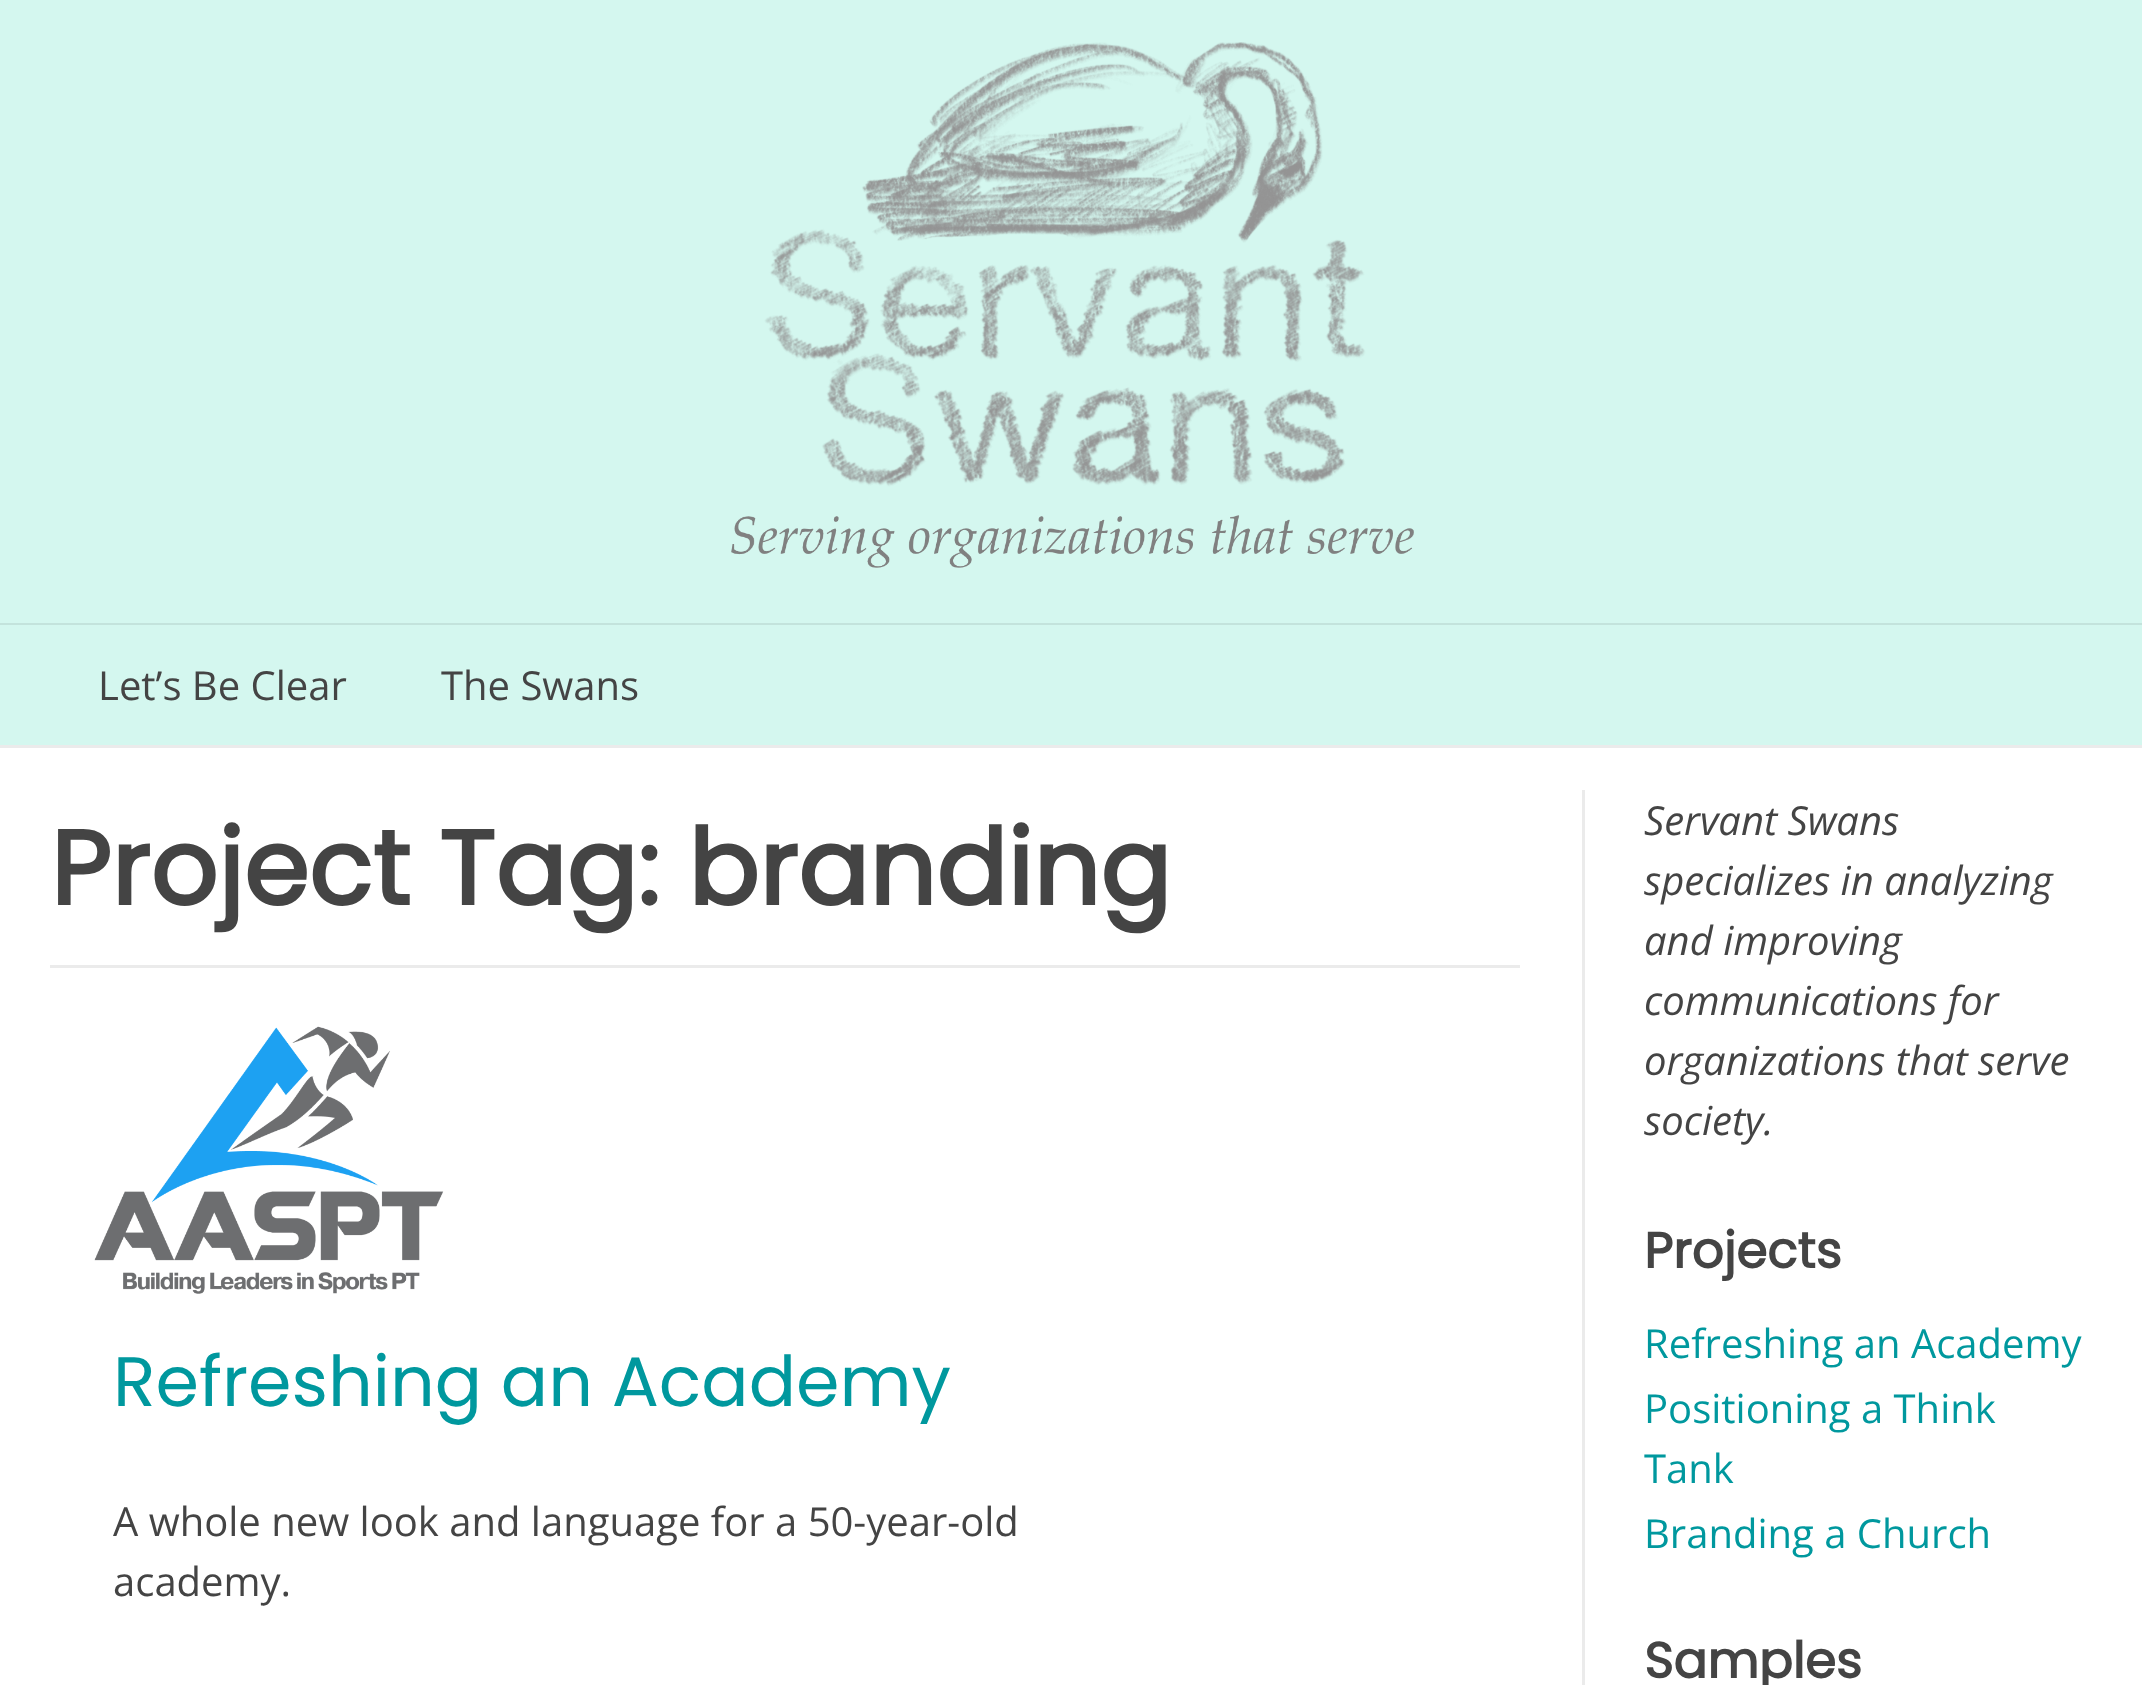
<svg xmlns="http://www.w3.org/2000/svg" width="2142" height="1685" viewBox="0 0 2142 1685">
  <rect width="100%" height="100%" fill="#ffffff"/>
  <path d="M0 745V748H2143V-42H2142V745Z" fill="#ebebeb"/>
  <rect x="0" y="0" width="2142" height="745" fill="#d4f7ef"/>
  <image x="731" y="42" width="683" height="526" href="img1.png"/>
  <path d="M0 623V625H2142V743H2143V623Z" fill="#c3e3dc"/>
  <text x="98" y="700" font-family="Open Sans" font-size="40" fill="#444444">Let’s Be Clear</text>
  <text x="441" y="700" font-family="Open Sans" font-size="40" fill="#444444">The Swans</text>
  <path d="M53 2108H1585V790H1582V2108Z" fill="#ebebeb"/>
  <rect x="50" y="965" width="1470" height="3" fill="#ebebeb"/>
  <text x="50" y="905" font-family="Poppins" font-size="105" font-weight="bold" fill="#444444">Project Tag: branding</text>
  <image x="94" y="1026" width="350" height="268" href="img2.png"/>
  <text x="113" y="1406" font-family="Poppins" font-size="70" fill="#00989e">Refreshing an Academy</text>
  <text x="113" y="1536" font-family="Open Sans" font-size="40" fill="#444444">A whole new look and language for a 50-year-old</text>
  <text x="113" y="1596" font-family="Open Sans" font-size="40" fill="#444444">academy.</text>
  <text x="1644" y="835" font-family="Open Sans" font-size="40" font-style="italic" fill="#444444">Servant Swans</text>
  <text x="1644" y="895" font-family="Open Sans" font-size="40" font-style="italic" fill="#444444">specializes in analyzing</text>
  <text x="1644" y="955" font-family="Open Sans" font-size="40" font-style="italic" fill="#444444">and improving</text>
  <text x="1644" y="1015" font-family="Open Sans" font-size="40" font-style="italic" fill="#444444">communications for</text>
  <text x="1644" y="1075" font-family="Open Sans" font-size="40" font-style="italic" fill="#444444">organizations that serve</text>
  <text x="1644" y="1135" font-family="Open Sans" font-size="40" font-style="italic" fill="#444444">society.</text>
  <text x="1644" y="1268" font-family="Poppins" font-size="50" font-weight="bold" fill="#444444">Projects</text>
  <text x="1644" y="1358" font-family="Open Sans" font-size="40" fill="#00989e">Refreshing an Academy</text>
  <text x="1644" y="1423" font-family="Open Sans" font-size="40" fill="#00989e">Positioning a Think</text>
  <text x="1644" y="1483" font-family="Open Sans" font-size="40" fill="#00989e">Tank</text>
  <text x="1644" y="1548" font-family="Open Sans" font-size="40" fill="#00989e">Branding a Church</text>
  <text x="1644" y="1678" font-family="Poppins" font-size="50" font-weight="bold" fill="#444444">Samples</text>
</svg>
